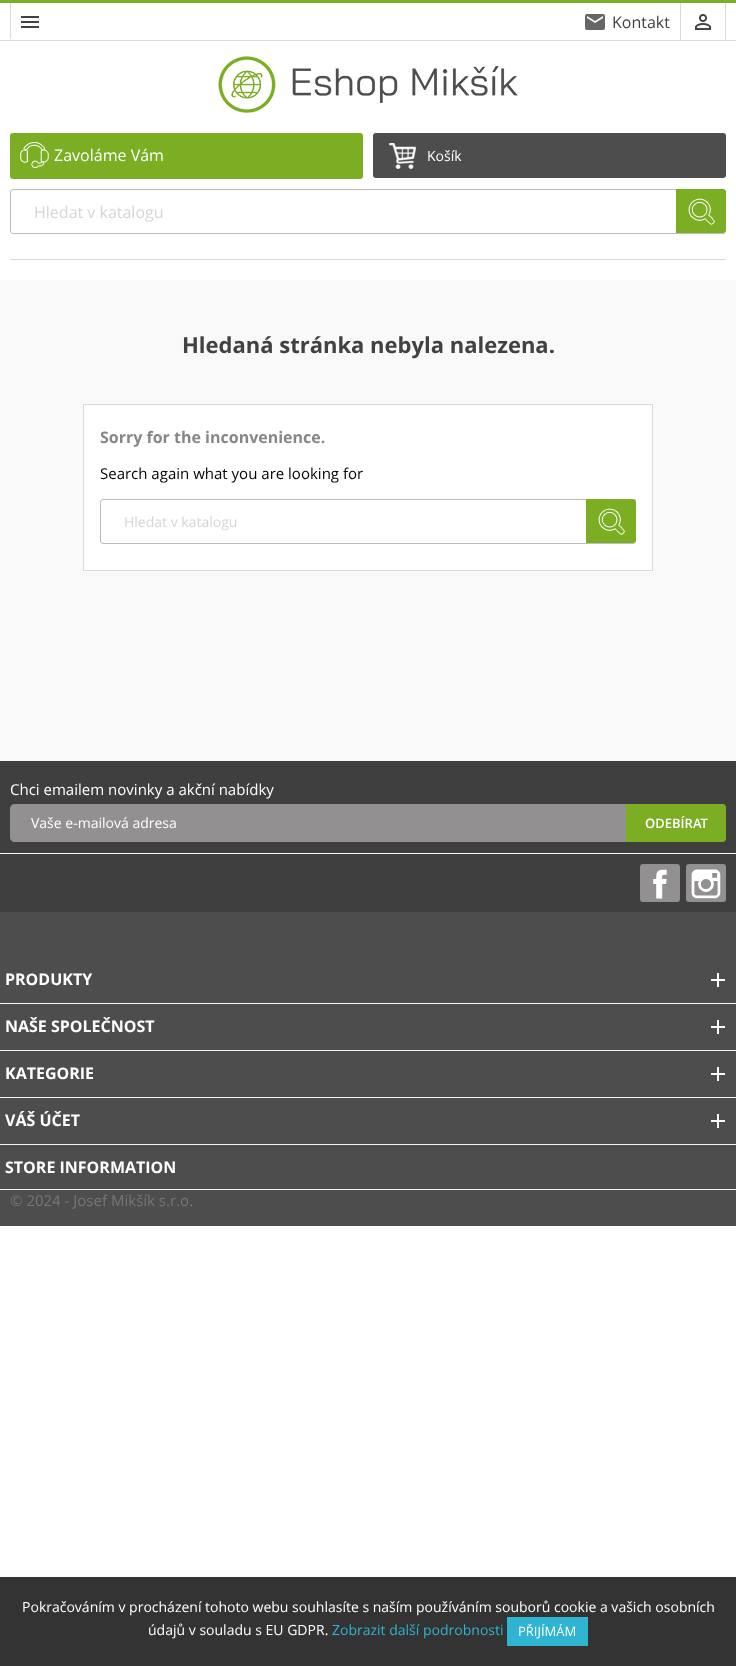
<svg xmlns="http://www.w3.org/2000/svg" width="736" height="1666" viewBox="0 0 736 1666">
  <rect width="100%" height="100%" fill="#ffffff"/>
  <rect x="0" y="280" width="736" height="481" fill="#f9f9f9"/>
  <rect x="0" y="0" width="736" height="3" fill="#7bae23"/>
  <rect x="0" y="40" width="736" height="1" fill="#dcdbda"/>
  <rect x="10" y="3" width="1" height="36" fill="#dadada"/>
  <image x="21" y="16" width="18" height="12" href="img1.png"/>
  <rect x="680" y="3" width="1" height="37" fill="#dcdbda"/>
  <image x="585" y="14" width="20" height="16" href="img2.png"/>
  <text x="612" y="28" font-family="Open Sans" font-size="16" fill="#414141">Kontakt</text>
  <rect x="725" y="3" width="1" height="37" fill="#dcdbda"/>
  <image x="695" y="14" width="16" height="16" href="img3.png"/>
  <rect x="10" y="259" width="716" height="1" fill="#dcdbda"/>
  <image x="218" y="56" width="300" height="57" href="img4.png"/>
  <rect x="10" y="133" width="353" height="46" rx="3" fill="#7bae23"/>
  <image x="20" y="142" width="29" height="26" href="img5.png"/>
  <text x="54" y="161" font-family="Open Sans" font-size="16" fill="#ffffff">Zavoláme Vám</text>
  <rect x="373" y="133" width="353" height="45" rx="3" fill="#4d4d4d"/>
  <image x="389" y="143" width="27" height="26" href="img6.png"/>
  <text x="427" y="161" font-family="Open Sans" font-size="14" fill="#ffffff">Košík</text>
  <rect x="10.5" y="189.5" width="715" height="44" rx="2.5" fill="none" stroke="#bcbcbb"/>
  <text x="34" y="218" font-family="Open Sans" font-size="16" fill="#d6d5d3">Hledat v katalogu</text>
  <path d="M676 189H723C724.5 189 726 190.5 726 192V230C726 231.5 724.5 233 723 233H676Z" fill="#7bae23"/>
  <image x="688" y="198" width="27" height="27" href="img7.png"/>
  <text x="182" y="353" font-family="Open Sans" font-size="22" font-weight="bold" fill="#414141">Hledaná stránka nebyla nalezena.</text>
  <rect x="83.5" y="404.5" width="569" height="166" fill="#ffffff" stroke="#dadada"/>
  <text x="100" y="443" font-family="Open Sans" font-size="16" font-weight="bold" fill="#878787">Sorry for the inconvenience.</text>
  <text x="100" y="479" font-family="Open Sans" font-size="15" fill="#020202">Search again what you are looking for</text>
  <rect x="100.5" y="499.5" width="535" height="44" rx="2.5" fill="none" stroke="#bcbcbb"/>
  <text x="124" y="527" font-family="Open Sans" font-size="14" fill="#d6d5d3">Hledat v katalogu</text>
  <path d="M586 499H633C634.5 499 636 500.5 636 502V540C636 541.5 634.5 543 633 543H586Z" fill="#7bae23"/>
  <image x="598" y="508" width="27" height="27" href="img7.png"/>
  <rect x="0" y="761" width="736" height="151" fill="#3f3f3f"/>
  <rect x="0" y="853" width="736" height="1" fill="#f6f6f6"/>
  <text x="10" y="795" font-family="Open Sans" font-size="15" fill="#ffffff">Chci emailem novinky a akční nabídky</text>
  <path d="M15 804H626V842H15C12 842 10 840 10 837V809C10 806 12 804 15 804Z" fill="#929090"/>
  <text x="31" y="828" font-family="Open Sans" font-size="14" fill="#ffffff">Vaše e-mailová adresa</text>
  <path d="M626 804H723C724.5 804 726 805.5 726 807V839C726 840.5 724.5 842 723 842H626Z" fill="#7bae23"/>
  <text x="645" y="828" font-family="Open Sans" font-size="13" font-weight="600" fill="#ffffff">ODEBÍRAT</text>
  <rect x="640" y="864" width="40" height="38" rx="3" fill="#929090"/>
  <image x="653" y="869" width="14" height="30" href="img8.png"/>
  <rect x="686" y="864" width="40" height="38" rx="3" fill="#929090"/>
  <image x="691" y="869" width="30" height="30" href="img9.png"/>
  <rect x="0" y="912" width="736" height="314" fill="#4d4d4d"/>
  <rect x="0" y="1003" width="736" height="1" fill="#f6f6f6"/>
  <text x="5" y="985" font-family="Open Sans" font-size="16" font-weight="bold" fill="#ffffff">PRODUKTY</text>
  <image x="711" y="973" width="14" height="14" href="img10.png"/>
  <rect x="0" y="1050" width="736" height="1" fill="#f6f6f6"/>
  <text x="5" y="1032" font-family="Open Sans" font-size="16" font-weight="bold" fill="#ffffff">NAŠE SPOLEČNOST</text>
  <image x="711" y="1020" width="14" height="14" href="img10.png"/>
  <rect x="0" y="1097" width="736" height="1" fill="#f6f6f6"/>
  <text x="5" y="1079" font-family="Open Sans" font-size="16" font-weight="bold" fill="#ffffff">KATEGORIE</text>
  <image x="711" y="1067" width="14" height="14" href="img10.png"/>
  <rect x="0" y="1144" width="736" height="1" fill="#f6f6f6"/>
  <text x="5" y="1126" font-family="Open Sans" font-size="16" font-weight="bold" fill="#ffffff">VÁŠ ÚČET</text>
  <image x="711" y="1114" width="14" height="14" href="img10.png"/>
  <rect x="0" y="1189" width="736" height="1" fill="#f6f6f6"/>
  <text x="5" y="1173" font-family="Open Sans" font-size="16" font-weight="bold" fill="#ffffff">STORE INFORMATION</text>
  <rect x="0" y="1577" width="736" height="89" fill="#333333"/>
  <text x="22" y="1612" font-family="Open Sans" font-size="14" fill="#ffffff">Pokračováním v procházení tohoto webu souhlasíte s naším používáním souborů cookie a vašich osobních</text>
  <text x="148" y="1635" font-family="Open Sans" font-size="14" fill="#ffffff">údajů v souladu s EU GDPR.</text>
  <text x="332" y="1635" font-family="Open Sans" font-size="14" fill="#2fb5d2">Zobrazit další podrobnosti</text>
  <rect x="507" y="1617" width="81" height="29" fill="#2fb5d2"/>
  <text x="518" y="1636" font-family="Open Sans" font-size="13" fill="#ffffff">PŘIJÍMÁM</text>
  <text x="10" y="1206" font-family="Open Sans" font-size="15" fill="#777777">© 2024 - Josef Mikšík s.r.o.</text>
</svg>
